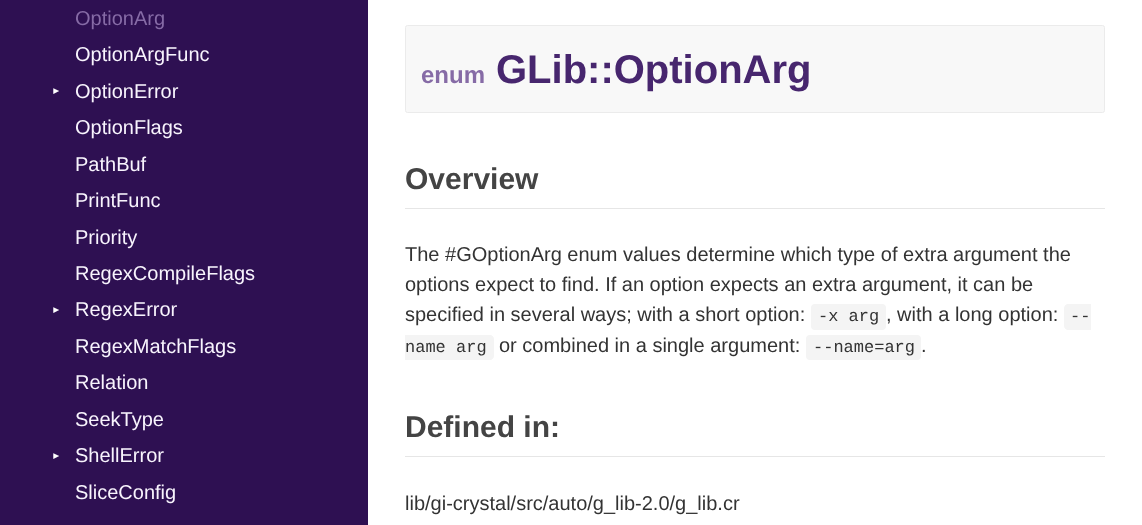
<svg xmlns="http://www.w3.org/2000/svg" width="1142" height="525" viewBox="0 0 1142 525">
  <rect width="100%" height="100%" fill="#ffffff"/>
  <rect x="0" y="0" width="368" height="525" fill="#2e1052"/>
  <text x="75" y="25" font-family="Liberation Sans" font-size="20" fill="#866ba6">OptionArg</text>
  <text x="75" y="61" font-family="Liberation Sans" font-size="20" fill="#f8f4fd">OptionArgFunc</text>
  <text x="59" y="96" transform="rotate(-90 59 96)" font-family="Liberation Sans" font-size="10" fill="#ffffff">▼</text>
  <text x="75" y="98" font-family="Liberation Sans" font-size="20" fill="#f8f4fd">OptionError</text>
  <text x="75" y="134" font-family="Liberation Sans" font-size="20" fill="#f8f4fd">OptionFlags</text>
  <text x="75" y="171" font-family="Liberation Sans" font-size="20" fill="#f8f4fd">PathBuf</text>
  <text x="75" y="207" font-family="Liberation Sans" font-size="20" fill="#f8f4fd">PrintFunc</text>
  <text x="75" y="244" font-family="Liberation Sans" font-size="20" fill="#f8f4fd">Priority</text>
  <text x="75" y="280" font-family="Liberation Sans" font-size="20" fill="#f8f4fd">RegexCompileFlags</text>
  <text x="59" y="315" transform="rotate(-90 59 315)" font-family="Liberation Sans" font-size="10" fill="#ffffff">▼</text>
  <text x="75" y="316" font-family="Liberation Sans" font-size="20" fill="#f8f4fd">RegexError</text>
  <text x="75" y="353" font-family="Liberation Sans" font-size="20" fill="#f8f4fd">RegexMatchFlags</text>
  <text x="75" y="389" font-family="Liberation Sans" font-size="20" fill="#f8f4fd">Relation</text>
  <text x="75" y="426" font-family="Liberation Sans" font-size="20" fill="#f8f4fd">SeekType</text>
  <text x="59" y="461" transform="rotate(-90 59 461)" font-family="Liberation Sans" font-size="10" fill="#ffffff">▼</text>
  <text x="75" y="462" font-family="Liberation Sans" font-size="20" fill="#f8f4fd">ShellError</text>
  <text x="75" y="499" font-family="Liberation Sans" font-size="20" fill="#f8f4fd">SliceConfig</text>
  <rect x="405.5" y="25.5" width="699" height="87" rx="2" fill="#f8f8f8" stroke="#ebebeb"/>
  <text x="421" y="83" font-family="Liberation Sans" font-size="24" font-weight="bold" fill="#866ba6">enum</text>
  <text x="496" y="83" font-family="Liberation Sans" font-size="40" font-weight="bold" fill="#47266e">GLib::OptionArg</text>
  <rect x="405" y="208" width="700" height="1" fill="#e6e6e6"/>
  <text x="405" y="189" font-family="Liberation Sans" font-size="30" font-weight="bold" fill="#444444">Overview</text>
  <text x="405" y="261" font-family="Liberation Sans" font-size="20" fill="#333333">The #GOptionArg enum values determine which type of extra argument the</text>
  <text x="405" y="291" font-family="Liberation Sans" font-size="20" fill="#333333">options expect to find. If an option expects an extra argument, it can be</text>
  <text x="405" y="321" font-family="Liberation Sans" font-size="20" fill="#333333">specified in several ways; with a short option:</text>
  <rect x="811" y="304" width="75" height="26" rx="4" fill="#f4f4f4"/>
  <text x="818" y="321" font-family="Liberation Mono" font-size="17" fill="#333333">-x arg</text>
  <text x="886" y="321" font-family="Liberation Sans" font-size="20" fill="#333333">, with a long option:</text>
  <path d="M1068 304H1091V330H1068C1066 330 1064 328 1064 326V308C1064 306 1066 304 1068 304Z" fill="#f4f4f4"/>
  <text x="1070" y="321" font-family="Liberation Mono" font-size="17" fill="#333333">--</text>
  <path d="M405 335H490C492 335 494 337 494 339V356C494 358 492 360 490 360H405Z" fill="#f4f4f4"/>
  <text x="405" y="352" font-family="Liberation Mono" font-size="17" fill="#333333">name arg</text>
  <text x="499" y="352" font-family="Liberation Sans" font-size="20" fill="#333333">or combined in a single argument:</text>
  <rect x="806" y="335" width="115" height="25" rx="4" fill="#f4f4f4"/>
  <text x="813" y="352" font-family="Liberation Mono" font-size="17" fill="#333333">--name=arg</text>
  <text x="921" y="352" font-family="Liberation Sans" font-size="20" fill="#333333">.</text>
  <rect x="405" y="456" width="700" height="1" fill="#e6e6e6"/>
  <text x="405" y="437" font-family="Liberation Sans" font-size="30" font-weight="bold" fill="#444444">Defined in:</text>
  <text x="405" y="510" font-family="Liberation Sans" font-size="20" fill="#333333">lib/gi-crystal/src/auto/g_lib-2.0/g_lib.cr</text>
</svg>
